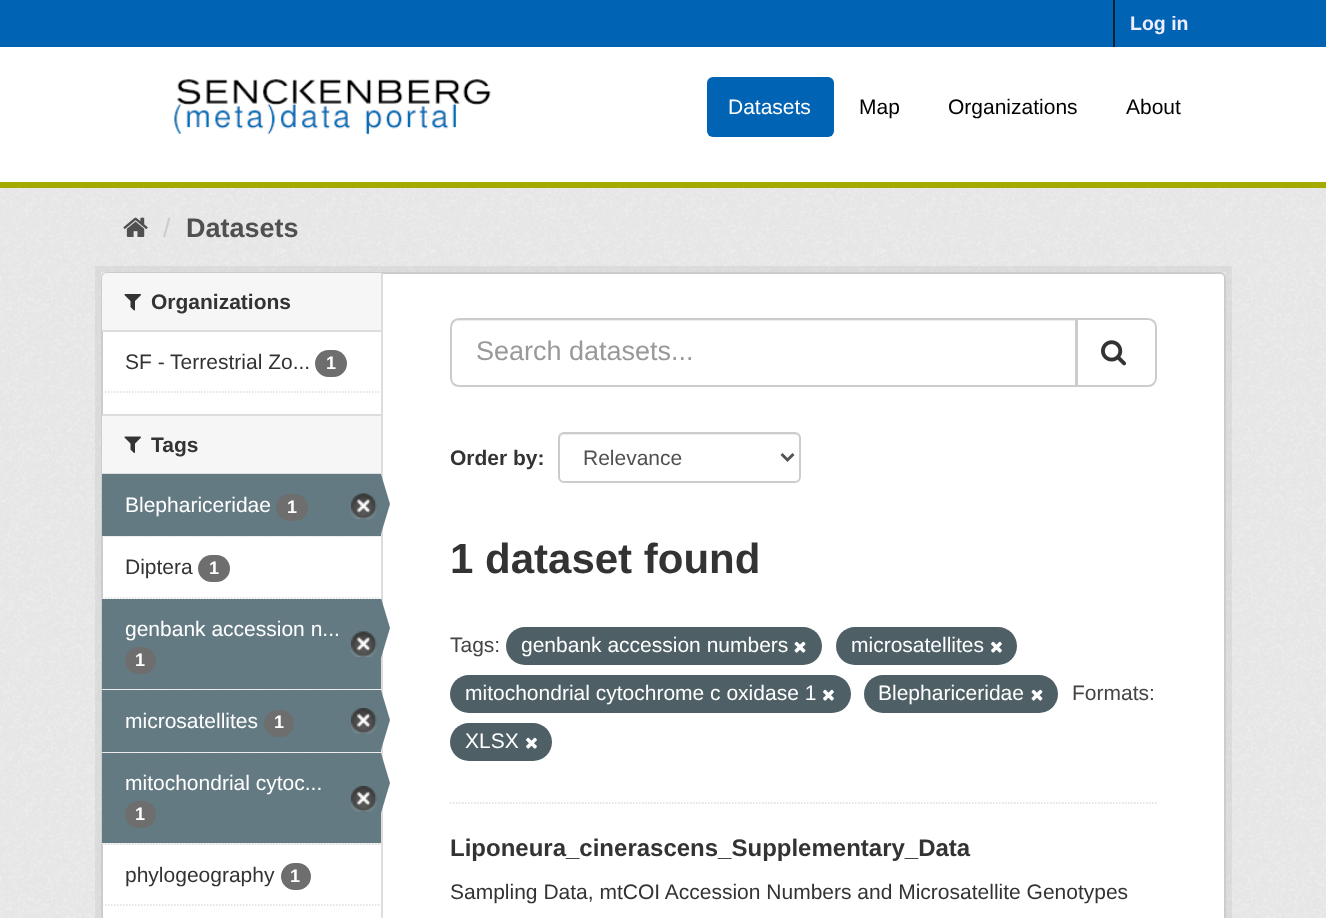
<svg xmlns="http://www.w3.org/2000/svg" width="1326" height="918" viewBox="0 0 1326 918">
  <rect width="100%" height="100%" fill="#ffffff"/>
  <rect x="0" y="0" width="1326" height="47" fill="#0063b4"/>
  <rect x="1113" y="0" width="2" height="47" fill="#00232e"/>
  <text x="1130" y="30" font-family="Liberation Sans" font-size="19.5" font-weight="bold" fill="#eeeeff">Log in</text>
  <rect x="0" y="182" width="1326" height="6" fill="#a4aa00"/>
  <image x="174" y="79" width="317" height="56" href="img1.png"/>
  <rect x="707" y="77" width="127" height="60" rx="6" fill="#0063b4"/>
  <text x="728" y="114" font-family="Liberation Sans" font-size="21" fill="#ffffff">Datasets</text>
  <text x="859" y="114" font-family="Liberation Sans" font-size="21" fill="#000000">Map</text>
  <text x="948" y="114" font-family="Liberation Sans" font-size="21" fill="#000000">Organizations</text>
  <text x="1126" y="114" font-family="Liberation Sans" font-size="21" fill="#000000">About</text>
  <rect x="0" y="188" width="1326" height="730" fill="#eeeeee"/>
  <image x="0" y="188" width="1326" height="730" href="img2.png"/>
  <image x="123" y="217" width="25" height="20" href="img3.png"/>
  <text x="163" y="237" font-family="Liberation Sans" font-size="27" fill="#cccccc">/</text>
  <text x="186" y="237" font-family="Liberation Sans" font-size="27" font-weight="bold" fill="#505050">Datasets</text>
  <rect x="98" y="269" width="1131" height="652" fill="none" stroke="#000000" stroke-opacity="0.05" stroke-width="6"/>
  <rect x="102" y="273" width="1123" height="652" rx="5" fill="#ffffff" stroke="#cccccc" stroke-width="2"/>
  <path d="M107 273H381V332H102V278C102 275 104 273 107 273Z" fill="#f6f6f6"/>
  <rect x="102" y="330" width="279" height="2" fill="#dddddd"/>
  <image x="124" y="294" width="17" height="17" href="img4.png"/>
  <text x="151" y="309" font-family="Liberation Sans" font-size="21" font-weight="bold" fill="#333333">Organizations</text>
  <text x="125" y="369" font-family="Liberation Sans" font-size="21" fill="#333333">SF - Terrestrial Zo...</text>
  <rect x="315" y="350" width="32" height="27" rx="13.5" fill="#6e6e6e"/>
  <text x="326" y="369" font-family="Liberation Sans" font-size="18" font-weight="bold" fill="#ffffff">1</text>
  <path d="M102 392H381" fill="none" stroke="#dddddd" stroke-width="1.5" stroke-dasharray="1.5 1.5"/>
  <rect x="102" y="416" width="279" height="57" fill="#f6f6f6"/>
  <rect x="102" y="414" width="279" height="2" fill="#dddddd"/>
  <rect x="102" y="473" width="279" height="1" fill="#dddddd"/>
  <image x="124" y="436" width="17" height="17" href="img5.png"/>
  <text x="151" y="452" font-family="Liberation Sans" font-size="21" font-weight="bold" fill="#333333">Tags</text>
  <rect x="102" y="536" width="279" height="1" fill="#f6f6f6"/>
  <path d="M102 536H381" fill="none" stroke="#dddddd" stroke-width="1.5" stroke-dasharray="1.5 1.5"/>
  <rect x="102" y="474" width="279" height="62" fill="#647a82"/>
  <text x="125" y="512" font-family="Liberation Sans" font-size="21" fill="#ffffff">Blephariceridae</text>
  <rect x="276" y="494" width="32" height="27" rx="13.5" fill="#6e6e6e"/>
  <text x="287" y="513" font-family="Liberation Sans" font-size="18" font-weight="bold" fill="#ffffff">1</text>
  <image x="351" y="493" width="26" height="26" href="img6.png"/>
  <rect x="381" y="273" width="2" height="645" fill="#dddddd"/>
  <path d="M381 534V474L390 504Z" fill="#647a82"/>
  <path d="M102 598H381" fill="none" stroke="#dddddd" stroke-width="1.5" stroke-dasharray="1.5 1.5"/>
  <text x="125" y="574" font-family="Liberation Sans" font-size="21" fill="#333333">Diptera</text>
  <rect x="198" y="555" width="32" height="27" rx="13.5" fill="#6e6e6e"/>
  <text x="209" y="574" font-family="Liberation Sans" font-size="18" font-weight="bold" fill="#ffffff">1</text>
  <rect x="102" y="689" width="279" height="1" fill="#f6f6f6"/>
  <path d="M102 689H381" fill="none" stroke="#dddddd" stroke-width="1.5" stroke-dasharray="1.5 1.5"/>
  <rect x="102" y="599" width="279" height="90" fill="#647a82"/>
  <text x="125" y="636" font-family="Liberation Sans" font-size="21" fill="#ffffff">genbank accession n...</text>
  <image x="351" y="631" width="26" height="26" href="img6.png"/>
  <path d="M381 658V598L390 628Z" fill="#647a82"/>
  <rect x="125" y="647" width="31" height="27" rx="13.5" fill="#6e6e6e"/>
  <text x="135" y="666" font-family="Liberation Sans" font-size="18" font-weight="bold" fill="#ffffff">1</text>
  <rect x="102" y="752" width="279" height="1" fill="#f6f6f6"/>
  <path d="M102 752H381" fill="none" stroke="#dddddd" stroke-width="1.5" stroke-dasharray="1.5 1.5"/>
  <rect x="102" y="690" width="279" height="62" fill="#647a82"/>
  <text x="125" y="728" font-family="Liberation Sans" font-size="21" fill="#ffffff">microsatellites</text>
  <rect x="264" y="710" width="30" height="27" rx="13.5" fill="#6e6e6e"/>
  <text x="274" y="728" font-family="Liberation Sans" font-size="18" font-weight="bold" fill="#ffffff">1</text>
  <image x="351" y="708" width="26" height="26" href="img7.png"/>
  <path d="M381 750V690L390 720Z" fill="#647a82"/>
  <rect x="102" y="843" width="279" height="2" fill="#f6f6f6"/>
  <path d="M102 844H381" fill="none" stroke="#dddddd" stroke-width="1.5" stroke-dasharray="1.5 1.5"/>
  <rect x="102" y="753" width="279" height="90" fill="#647a82"/>
  <text x="125" y="790" font-family="Liberation Sans" font-size="21" fill="#ffffff">mitochondrial cytoc...</text>
  <image x="351" y="786" width="26" height="26" href="img7.png"/>
  <path d="M381 813V753L390 783Z" fill="#647a82"/>
  <rect x="125" y="801" width="31" height="27" rx="13.5" fill="#6e6e6e"/>
  <text x="135" y="820" font-family="Liberation Sans" font-size="18" font-weight="bold" fill="#ffffff">1</text>
  <path d="M102 905H381" fill="none" stroke="#dddddd" stroke-width="1.5" stroke-dasharray="1.5 1.5"/>
  <text x="125" y="882" font-family="Liberation Sans" font-size="21" fill="#333333">phylogeography</text>
  <rect x="281" y="863" width="30" height="27" rx="13.5" fill="#6e6e6e"/>
  <text x="290" y="882" font-family="Liberation Sans" font-size="18" font-weight="bold" fill="#ffffff">1</text>
  <path d="M450 803H1156.5" fill="none" stroke="#dddddd" stroke-width="1.5" stroke-dasharray="1.5 1.5"/>
  <path d="M459 321H1076V320H460C456 320 452 324 452 328C452 324 455 321 459 321Z" fill="#ececec"/>
  <path d="M459 319H1076V386H459C454.5 386 451 382.5 451 378V327C451 322.5 454.5 319 459 319Z" fill="none" stroke="#cccccc" stroke-width="2"/>
  <text x="476" y="360" font-family="Liberation Sans" font-size="27" fill="#999999">Search datasets...</text>
  <path d="M1077 319H1148C1152.5 319 1156 322.5 1156 327V378C1156 382.5 1152.5 386 1148 386H1077Z" fill="#ffffff" stroke="#cccccc" stroke-width="2"/>
  <image x="1101" y="340" width="26" height="26" href="img8.png"/>
  <text x="450" y="465" font-family="Liberation Sans" font-size="21" font-weight="bold" fill="#333333">Order by:</text>
  <path d="M564 435H795C797 435 800 437 800 440V439C800 436 798 434 795 434H565C562 434 560 436 560 439V440C560 437 562 435 564 435Z" fill="#ececec"/>
  <rect x="559" y="433" width="241" height="49" rx="5" fill="none" stroke="#cccccc" stroke-width="2"/>
  <path d="M781.5 454L787.5 460L793.5 454" fill="none" stroke="#555555" stroke-width="3"/>
  <text x="583" y="465" font-family="Liberation Sans" font-size="21" fill="#505050">Relevance</text>
  <text x="450" y="573" font-family="Liberation Sans" font-size="42" font-weight="bold" fill="#333333">1 dataset found</text>
  <text x="450" y="652" font-family="Liberation Sans" font-size="21" fill="#444444">Tags:</text>
  <rect x="506" y="627" width="316" height="38" rx="19" fill="#4e5f65"/>
  <text x="521" y="652" font-family="Liberation Sans" font-size="21" fill="#ffffff">genbank accession numbers</text>
  <image x="794" y="641" width="12" height="12" href="img9.png"/>
  <rect x="836" y="627" width="181" height="38" rx="19" fill="#4e5f65"/>
  <text x="851" y="652" font-family="Liberation Sans" font-size="21" fill="#ffffff">microsatellites</text>
  <image x="991" y="641" width="11" height="12" href="img10.png"/>
  <rect x="450" y="675" width="401" height="38" rx="19" fill="#4e5f65"/>
  <text x="465" y="700" font-family="Liberation Sans" font-size="21" fill="#ffffff">mitochondrial cytochrome c oxidase 1</text>
  <image x="823" y="689" width="11" height="12" href="img10.png"/>
  <rect x="864" y="675" width="194" height="38" rx="19" fill="#4e5f65"/>
  <text x="878" y="700" font-family="Liberation Sans" font-size="21" fill="#ffffff">Blephariceridae</text>
  <image x="1031" y="689" width="12" height="12" href="img9.png"/>
  <text x="1072" y="700" font-family="Liberation Sans" font-size="21" fill="#444444">Formats:</text>
  <rect x="450" y="723" width="102" height="38" rx="19" fill="#4e5f65"/>
  <text x="465" y="748" font-family="Liberation Sans" font-size="21" fill="#ffffff">XLSX</text>
  <image x="526" y="737" width="11" height="12" href="img10.png"/>
  <text x="450" y="856" font-family="Liberation Sans" font-size="24" font-weight="bold" fill="#333333">Liponeura_cinerascens_Supplementary_Data</text>
  <text x="450" y="899" font-family="Liberation Sans" font-size="21" fill="#333333">Sampling Data, mtCOI Accession Numbers and Microsatellite Genotypes</text>
</svg>
